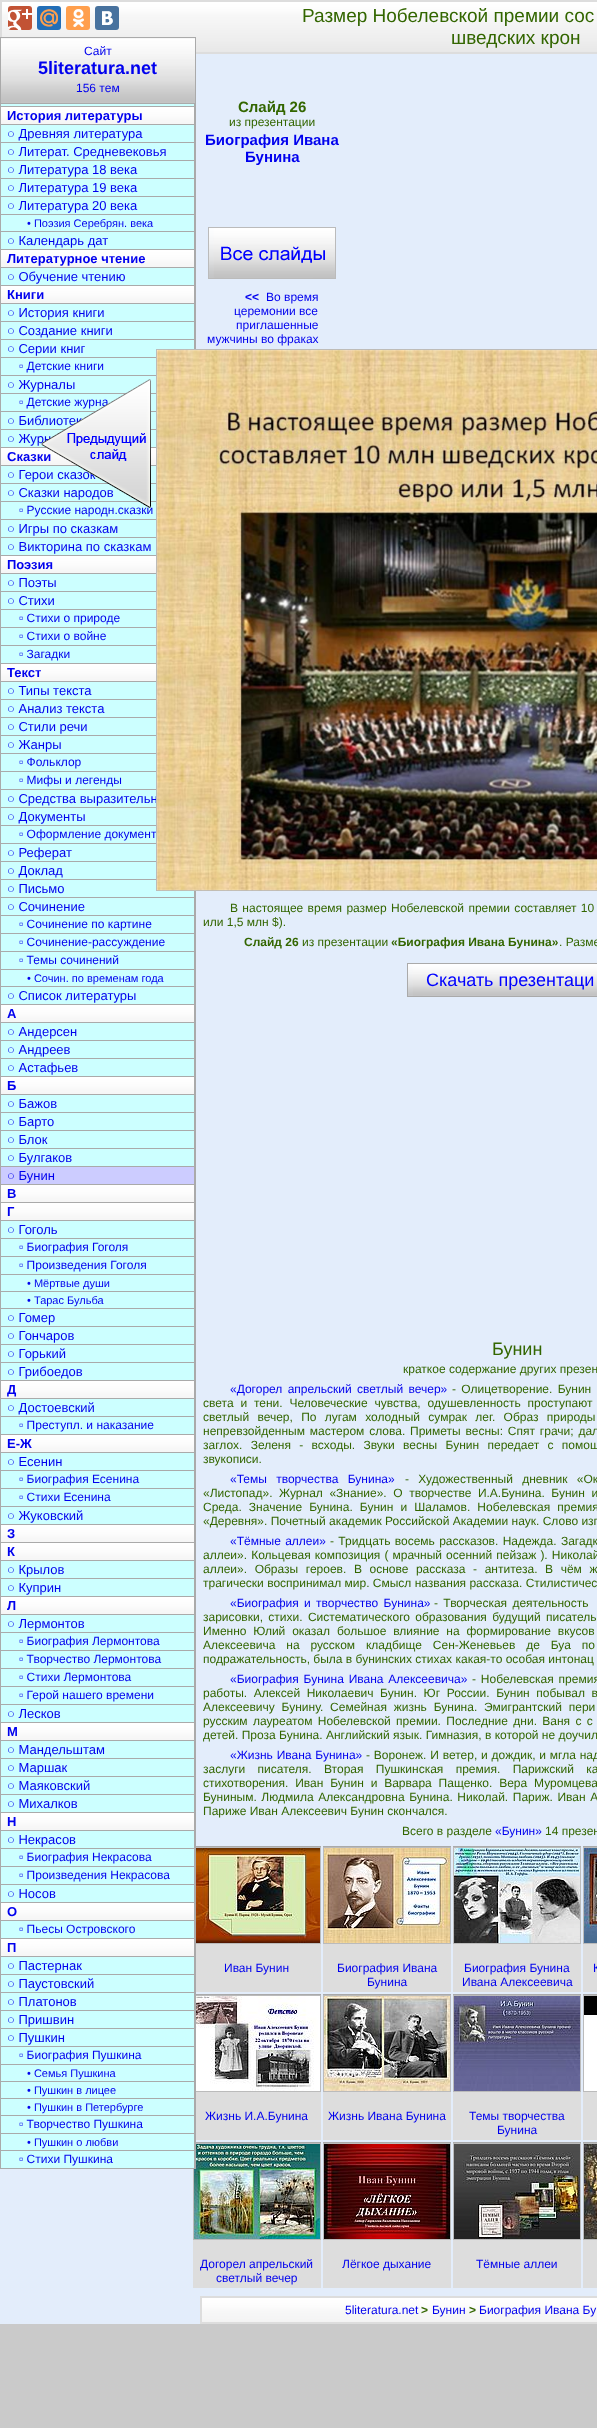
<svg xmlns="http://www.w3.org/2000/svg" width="597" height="2428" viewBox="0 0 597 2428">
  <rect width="100%" height="100%" fill="#cacaca"/>
  <rect x="0" y="54" width="597" height="2270" fill="#e3edfb"/>
  <image x="2" y="2" width="595" height="50" href="img1.png"/>
  <rect x="1" y="1" width="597" height="52" fill="none" stroke="#dddddd" stroke-width="2"/>
  <rect x="8" y="6" width="24" height="24" rx="3" fill="#c25234"/>
  <image x="8" y="9" width="24" height="21" href="img2.png"/>
  <rect x="37" y="6" width="24" height="24" rx="3" fill="#226eb7"/>
  <image x="40" y="9" width="18" height="18" href="img3.png"/>
  <rect x="66" y="6" width="24" height="24" rx="3" fill="#ff9f4d"/>
  <image x="73" y="9" width="11" height="18" href="img4.png"/>
  <rect x="95" y="6" width="24" height="24" rx="3" fill="#48729e"/>
  <image x="102" y="11" width="11" height="14" href="img5.png"/>
  <text x="302" y="22" font-family="Liberation Sans" font-size="19" fill="#336600">Размер Нобелевской премии сос</text>
  <text x="451" y="44" font-family="Liberation Sans" font-size="19" fill="#336600">шведских крон</text>
  <image x="1" y="38" width="194" height="65" href="img6.png"/>
  <rect x="0.5" y="37.5" width="195" height="66" fill="none" stroke="#aaaaaa"/>
  <text x="84" y="55" font-family="Liberation Sans" font-size="12" fill="#0000ee">Сайт</text>
  <text x="38" y="74" font-family="Liberation Sans" font-size="18" font-weight="bold" fill="#0000ee">5literatura.net</text>
  <text x="76" y="92" font-family="Liberation Sans" font-size="12" fill="#0000ee">156 тем</text>
  <rect x="193" y="1846" width="128" height="1" fill="#aaaaaa"/>
  <rect x="193.5" y="1847.5" width="127" height="96" fill="none" stroke="#bbbbbb"/>
  <rect x="193" y="1994" width="128" height="1" fill="#aaaaaa"/>
  <rect x="193.5" y="1995.5" width="127" height="96" fill="none" stroke="#bbbbbb"/>
  <rect x="193" y="2142" width="128" height="1" fill="#aaaaaa"/>
  <rect x="193.5" y="2143.5" width="127" height="96" fill="none" stroke="#bbbbbb"/>
  <rect x="1" y="104" width="193" height="2064" fill="#ccffff"/>
  <image x="194" y="2144" width="126" height="95" href="img21.png"/>
  <rect x="0.5" y="103.5" width="195" height="2065" fill="none" stroke="#aaaaaa"/>
  <rect x="194" y="104" width="1" height="245" fill="#aaaaaa"/>
  <rect x="1" y="106" width="194" height="1" fill="#aaaaaa"/>
  <image x="1" y="107" width="193" height="17" href="img7.png"/>
  <rect x="1" y="124" width="194" height="1" fill="#aaaaaa"/>
  <text x="7" y="120" font-family="Liberation Sans" font-size="13" font-weight="bold" fill="#0000ee">История литературы</text>
  <rect x="1" y="142" width="194" height="1" fill="#aaaaaa"/>
  <text x="7" y="138" font-family="Liberation Sans" font-size="13" fill="#0000ee">○ Древняя литература</text>
  <rect x="1" y="160" width="194" height="1" fill="#aaaaaa"/>
  <text x="7" y="156" font-family="Liberation Sans" font-size="13" fill="#0000ee">○ Литерат. Средневековья</text>
  <rect x="1" y="178" width="194" height="1" fill="#aaaaaa"/>
  <text x="7" y="174" font-family="Liberation Sans" font-size="13" fill="#0000ee">○ Литература 18 века</text>
  <rect x="1" y="196" width="194" height="1" fill="#aaaaaa"/>
  <text x="7" y="192" font-family="Liberation Sans" font-size="13" fill="#0000ee">○ Литература 19 века</text>
  <rect x="1" y="214" width="194" height="1" fill="#aaaaaa"/>
  <text x="7" y="210" font-family="Liberation Sans" font-size="13" fill="#0000ee">○ Литература 20 века</text>
  <rect x="1" y="231" width="194" height="1" fill="#aaaaaa"/>
  <text x="27" y="227" font-family="Liberation Sans" font-size="11" fill="#0000ee">• Поэзия Серебрян. века</text>
  <rect x="1" y="249" width="194" height="1" fill="#aaaaaa"/>
  <text x="7" y="245" font-family="Liberation Sans" font-size="13" fill="#0000ee">○ Календарь дат</text>
  <image x="1" y="250" width="193" height="17" href="img7.png"/>
  <rect x="1" y="267" width="194" height="1" fill="#aaaaaa"/>
  <text x="7" y="263" font-family="Liberation Sans" font-size="13" font-weight="bold" fill="#0000ee">Литературное чтение</text>
  <rect x="1" y="285" width="194" height="1" fill="#aaaaaa"/>
  <text x="7" y="281" font-family="Liberation Sans" font-size="13" fill="#0000ee">○ Обучение чтению</text>
  <image x="1" y="286" width="193" height="17" href="img7.png"/>
  <rect x="1" y="303" width="194" height="1" fill="#aaaaaa"/>
  <text x="7" y="299" font-family="Liberation Sans" font-size="13" font-weight="bold" fill="#0000ee">Книги</text>
  <rect x="1" y="321" width="194" height="1" fill="#aaaaaa"/>
  <text x="7" y="317" font-family="Liberation Sans" font-size="13" fill="#0000ee">○ История книги</text>
  <rect x="1" y="339" width="194" height="1" fill="#aaaaaa"/>
  <text x="7" y="335" font-family="Liberation Sans" font-size="13" fill="#0000ee">○ Создание книги</text>
  <rect x="1" y="357" width="155" height="1" fill="#aaaaaa"/>
  <text x="7" y="353" font-family="Liberation Sans" font-size="13" fill="#0000ee">○ Серии книг</text>
  <rect x="1" y="375" width="155" height="1" fill="#aaaaaa"/>
  <text x="19" y="370" font-family="Liberation Sans" font-size="12" fill="#0000ee">▫ Детские книги</text>
  <rect x="1" y="393" width="155" height="1" fill="#aaaaaa"/>
  <text x="7" y="389" font-family="Liberation Sans" font-size="13" fill="#0000ee">○ Журналы</text>
  <rect x="1" y="411" width="155" height="1" fill="#aaaaaa"/>
  <text x="19" y="406" font-family="Liberation Sans" font-size="12" fill="#0000ee">▫ Детские журна</text>
  <rect x="1" y="429" width="155" height="1" fill="#aaaaaa"/>
  <text x="7" y="425" font-family="Liberation Sans" font-size="13" fill="#0000ee">○ Библиотек</text>
  <rect x="1" y="447" width="155" height="1" fill="#aaaaaa"/>
  <text x="7" y="443" font-family="Liberation Sans" font-size="13" fill="#0000ee">○ Журн</text>
  <image x="1" y="448" width="155" height="17" href="img8.png"/>
  <rect x="1" y="465" width="155" height="1" fill="#aaaaaa"/>
  <text x="7" y="461" font-family="Liberation Sans" font-size="13" font-weight="bold" fill="#0000ee">Сказки</text>
  <rect x="1" y="483" width="155" height="1" fill="#aaaaaa"/>
  <text x="7" y="479" font-family="Liberation Sans" font-size="13" fill="#0000ee">○ Герои сказок</text>
  <rect x="1" y="501" width="155" height="1" fill="#aaaaaa"/>
  <text x="7" y="497" font-family="Liberation Sans" font-size="13" fill="#0000ee">○ Сказки народов</text>
  <rect x="1" y="519" width="155" height="1" fill="#aaaaaa"/>
  <text x="19" y="514" font-family="Liberation Sans" font-size="12" fill="#0000ee">▫ Русские народн.сказки</text>
  <rect x="1" y="537" width="155" height="1" fill="#aaaaaa"/>
  <text x="7" y="533" font-family="Liberation Sans" font-size="13" fill="#0000ee">○ Игры по сказкам</text>
  <rect x="1" y="555" width="155" height="1" fill="#aaaaaa"/>
  <text x="7" y="551" font-family="Liberation Sans" font-size="13" fill="#0000ee">○ Викторина по сказкам</text>
  <image x="1" y="556" width="155" height="17" href="img8.png"/>
  <rect x="1" y="573" width="155" height="1" fill="#aaaaaa"/>
  <text x="7" y="569" font-family="Liberation Sans" font-size="13" font-weight="bold" fill="#0000ee">Поэзия</text>
  <rect x="1" y="591" width="155" height="1" fill="#aaaaaa"/>
  <text x="7" y="587" font-family="Liberation Sans" font-size="13" fill="#0000ee">○ Поэты</text>
  <rect x="1" y="609" width="155" height="1" fill="#aaaaaa"/>
  <text x="7" y="605" font-family="Liberation Sans" font-size="13" fill="#0000ee">○ Стихи</text>
  <rect x="1" y="627" width="155" height="1" fill="#aaaaaa"/>
  <text x="19" y="622" font-family="Liberation Sans" font-size="12" fill="#0000ee">▫ Стихи о природе</text>
  <rect x="1" y="645" width="155" height="1" fill="#aaaaaa"/>
  <text x="19" y="640" font-family="Liberation Sans" font-size="12" fill="#0000ee">▫ Стихи о войне</text>
  <rect x="1" y="663" width="155" height="1" fill="#aaaaaa"/>
  <text x="19" y="658" font-family="Liberation Sans" font-size="12" fill="#0000ee">▫ Загадки</text>
  <image x="1" y="664" width="155" height="17" href="img8.png"/>
  <rect x="1" y="681" width="155" height="1" fill="#aaaaaa"/>
  <text x="7" y="677" font-family="Liberation Sans" font-size="13" font-weight="bold" fill="#0000ee">Текст</text>
  <rect x="1" y="699" width="155" height="1" fill="#aaaaaa"/>
  <text x="7" y="695" font-family="Liberation Sans" font-size="13" fill="#0000ee">○ Типы текста</text>
  <rect x="1" y="717" width="155" height="1" fill="#aaaaaa"/>
  <text x="7" y="713" font-family="Liberation Sans" font-size="13" fill="#0000ee">○ Анализ текста</text>
  <rect x="1" y="735" width="155" height="1" fill="#aaaaaa"/>
  <text x="7" y="731" font-family="Liberation Sans" font-size="13" fill="#0000ee">○ Стили речи</text>
  <rect x="1" y="753" width="155" height="1" fill="#aaaaaa"/>
  <text x="7" y="749" font-family="Liberation Sans" font-size="13" fill="#0000ee">○ Жанры</text>
  <rect x="1" y="771" width="155" height="1" fill="#aaaaaa"/>
  <text x="19" y="766" font-family="Liberation Sans" font-size="12" fill="#0000ee">▫ Фольклор</text>
  <rect x="1" y="789" width="155" height="1" fill="#aaaaaa"/>
  <text x="19" y="784" font-family="Liberation Sans" font-size="12" fill="#0000ee">▫ Мифы и легенды</text>
  <rect x="1" y="807" width="155" height="1" fill="#aaaaaa"/>
  <text x="7" y="803" font-family="Liberation Sans" font-size="13" fill="#0000ee">○ Средства выразительн</text>
  <rect x="1" y="825" width="155" height="1" fill="#aaaaaa"/>
  <text x="7" y="821" font-family="Liberation Sans" font-size="13" fill="#0000ee">○ Документы</text>
  <rect x="1" y="843" width="155" height="1" fill="#aaaaaa"/>
  <text x="19" y="838" font-family="Liberation Sans" font-size="12" fill="#0000ee">▫ Оформление документ</text>
  <rect x="1" y="861" width="155" height="1" fill="#aaaaaa"/>
  <text x="7" y="857" font-family="Liberation Sans" font-size="13" fill="#0000ee">○ Реферат</text>
  <rect x="1" y="879" width="155" height="1" fill="#aaaaaa"/>
  <text x="7" y="875" font-family="Liberation Sans" font-size="13" fill="#0000ee">○ Доклад</text>
  <rect x="194" y="891" width="1" height="1277" fill="#aaaaaa"/>
  <rect x="1" y="897" width="194" height="1" fill="#aaaaaa"/>
  <text x="7" y="893" font-family="Liberation Sans" font-size="13" fill="#0000ee">○ Письмо</text>
  <rect x="1" y="915" width="194" height="1" fill="#aaaaaa"/>
  <text x="7" y="911" font-family="Liberation Sans" font-size="13" fill="#0000ee">○ Сочинение</text>
  <rect x="1" y="933" width="194" height="1" fill="#aaaaaa"/>
  <text x="19" y="928" font-family="Liberation Sans" font-size="12" fill="#0000ee">▫ Сочинение по картине</text>
  <rect x="1" y="951" width="194" height="1" fill="#aaaaaa"/>
  <text x="19" y="946" font-family="Liberation Sans" font-size="12" fill="#0000ee">▫ Сочинение-рассуждение</text>
  <rect x="1" y="969" width="194" height="1" fill="#aaaaaa"/>
  <text x="19" y="964" font-family="Liberation Sans" font-size="12" fill="#0000ee">▫ Темы сочинений</text>
  <rect x="1" y="986" width="194" height="1" fill="#aaaaaa"/>
  <text x="27" y="982" font-family="Liberation Sans" font-size="11" fill="#0000ee">• Сочин. по временам года</text>
  <rect x="1" y="1004" width="194" height="1" fill="#aaaaaa"/>
  <text x="7" y="1000" font-family="Liberation Sans" font-size="13" fill="#0000ee">○ Список литературы</text>
  <image x="1" y="1005" width="193" height="17" href="img7.png"/>
  <rect x="1" y="1022" width="194" height="1" fill="#aaaaaa"/>
  <text x="7" y="1018" font-family="Liberation Sans" font-size="13" font-weight="bold" fill="#0000ee">А</text>
  <rect x="1" y="1040" width="194" height="1" fill="#aaaaaa"/>
  <text x="7" y="1036" font-family="Liberation Sans" font-size="13" fill="#0000ee">○ Андерсен</text>
  <rect x="1" y="1058" width="194" height="1" fill="#aaaaaa"/>
  <text x="7" y="1054" font-family="Liberation Sans" font-size="13" fill="#0000ee">○ Андреев</text>
  <rect x="1" y="1076" width="194" height="1" fill="#aaaaaa"/>
  <text x="7" y="1072" font-family="Liberation Sans" font-size="13" fill="#0000ee">○ Астафьев</text>
  <image x="1" y="1077" width="193" height="17" href="img7.png"/>
  <rect x="1" y="1094" width="194" height="1" fill="#aaaaaa"/>
  <text x="7" y="1090" font-family="Liberation Sans" font-size="13" font-weight="bold" fill="#0000ee">Б</text>
  <rect x="1" y="1112" width="194" height="1" fill="#aaaaaa"/>
  <text x="7" y="1108" font-family="Liberation Sans" font-size="13" fill="#0000ee">○ Бажов</text>
  <rect x="1" y="1130" width="194" height="1" fill="#aaaaaa"/>
  <text x="7" y="1126" font-family="Liberation Sans" font-size="13" fill="#0000ee">○ Барто</text>
  <rect x="1" y="1148" width="194" height="1" fill="#aaaaaa"/>
  <text x="7" y="1144" font-family="Liberation Sans" font-size="13" fill="#0000ee">○ Блок</text>
  <rect x="1" y="1166" width="194" height="1" fill="#aaaaaa"/>
  <text x="7" y="1162" font-family="Liberation Sans" font-size="13" fill="#0000ee">○ Булгаков</text>
  <rect x="1" y="1167" width="193" height="17" fill="#ccccff"/>
  <rect x="1" y="1184" width="194" height="1" fill="#aaaaaa"/>
  <text x="7" y="1180" font-family="Liberation Sans" font-size="13" fill="#0000ee">○ Бунин</text>
  <image x="1" y="1185" width="193" height="17" href="img7.png"/>
  <rect x="1" y="1202" width="194" height="1" fill="#aaaaaa"/>
  <text x="7" y="1198" font-family="Liberation Sans" font-size="13" font-weight="bold" fill="#0000ee">В</text>
  <image x="1" y="1203" width="193" height="17" href="img7.png"/>
  <rect x="1" y="1220" width="194" height="1" fill="#aaaaaa"/>
  <text x="7" y="1216" font-family="Liberation Sans" font-size="13" font-weight="bold" fill="#0000ee">Г</text>
  <rect x="1" y="1238" width="194" height="1" fill="#aaaaaa"/>
  <text x="7" y="1234" font-family="Liberation Sans" font-size="13" fill="#0000ee">○ Гоголь</text>
  <rect x="1" y="1256" width="194" height="1" fill="#aaaaaa"/>
  <text x="19" y="1251" font-family="Liberation Sans" font-size="12" fill="#0000ee">▫ Биография Гоголя</text>
  <rect x="1" y="1274" width="194" height="1" fill="#aaaaaa"/>
  <text x="19" y="1269" font-family="Liberation Sans" font-size="12" fill="#0000ee">▫ Произведения Гоголя</text>
  <rect x="1" y="1291" width="194" height="1" fill="#aaaaaa"/>
  <text x="27" y="1287" font-family="Liberation Sans" font-size="11" fill="#0000ee">• Мёртвые души</text>
  <rect x="1" y="1308" width="194" height="1" fill="#aaaaaa"/>
  <text x="27" y="1304" font-family="Liberation Sans" font-size="11" fill="#0000ee">• Тарас Бульба</text>
  <rect x="1" y="1326" width="194" height="1" fill="#aaaaaa"/>
  <text x="7" y="1322" font-family="Liberation Sans" font-size="13" fill="#0000ee">○ Гомер</text>
  <rect x="1" y="1344" width="194" height="1" fill="#aaaaaa"/>
  <text x="7" y="1340" font-family="Liberation Sans" font-size="13" fill="#0000ee">○ Гончаров</text>
  <rect x="1" y="1362" width="194" height="1" fill="#aaaaaa"/>
  <text x="7" y="1358" font-family="Liberation Sans" font-size="13" fill="#0000ee">○ Горький</text>
  <rect x="1" y="1380" width="194" height="1" fill="#aaaaaa"/>
  <text x="7" y="1376" font-family="Liberation Sans" font-size="13" fill="#0000ee">○ Грибоедов</text>
  <image x="1" y="1381" width="193" height="17" href="img7.png"/>
  <rect x="1" y="1398" width="194" height="1" fill="#aaaaaa"/>
  <text x="7" y="1394" font-family="Liberation Sans" font-size="13" font-weight="bold" fill="#0000ee">Д</text>
  <rect x="1" y="1416" width="194" height="1" fill="#aaaaaa"/>
  <text x="7" y="1412" font-family="Liberation Sans" font-size="13" fill="#0000ee">○ Достоевский</text>
  <rect x="1" y="1434" width="194" height="1" fill="#aaaaaa"/>
  <text x="19" y="1429" font-family="Liberation Sans" font-size="12" fill="#0000ee">▫ Преступл. и наказание</text>
  <image x="1" y="1435" width="193" height="17" href="img7.png"/>
  <rect x="1" y="1452" width="194" height="1" fill="#aaaaaa"/>
  <text x="7" y="1448" font-family="Liberation Sans" font-size="13" font-weight="bold" fill="#0000ee">Е-Ж</text>
  <rect x="1" y="1470" width="194" height="1" fill="#aaaaaa"/>
  <text x="7" y="1466" font-family="Liberation Sans" font-size="13" fill="#0000ee">○ Есенин</text>
  <rect x="1" y="1488" width="194" height="1" fill="#aaaaaa"/>
  <text x="19" y="1483" font-family="Liberation Sans" font-size="12" fill="#0000ee">▫ Биография Есенина</text>
  <rect x="1" y="1506" width="194" height="1" fill="#aaaaaa"/>
  <text x="19" y="1501" font-family="Liberation Sans" font-size="12" fill="#0000ee">▫ Стихи Есенина</text>
  <rect x="1" y="1524" width="194" height="1" fill="#aaaaaa"/>
  <text x="7" y="1520" font-family="Liberation Sans" font-size="13" fill="#0000ee">○ Жуковский</text>
  <image x="1" y="1525" width="193" height="17" href="img7.png"/>
  <rect x="1" y="1542" width="194" height="1" fill="#aaaaaa"/>
  <text x="7" y="1538" font-family="Liberation Sans" font-size="13" font-weight="bold" fill="#0000ee">З</text>
  <image x="1" y="1543" width="193" height="17" href="img7.png"/>
  <rect x="1" y="1560" width="194" height="1" fill="#aaaaaa"/>
  <text x="7" y="1556" font-family="Liberation Sans" font-size="13" font-weight="bold" fill="#0000ee">К</text>
  <rect x="1" y="1578" width="194" height="1" fill="#aaaaaa"/>
  <text x="7" y="1574" font-family="Liberation Sans" font-size="13" fill="#0000ee">○ Крылов</text>
  <rect x="1" y="1596" width="194" height="1" fill="#aaaaaa"/>
  <text x="7" y="1592" font-family="Liberation Sans" font-size="13" fill="#0000ee">○ Куприн</text>
  <image x="1" y="1597" width="193" height="17" href="img7.png"/>
  <rect x="1" y="1614" width="194" height="1" fill="#aaaaaa"/>
  <text x="7" y="1610" font-family="Liberation Sans" font-size="13" font-weight="bold" fill="#0000ee">Л</text>
  <rect x="1" y="1632" width="194" height="1" fill="#aaaaaa"/>
  <text x="7" y="1628" font-family="Liberation Sans" font-size="13" fill="#0000ee">○ Лермонтов</text>
  <rect x="1" y="1650" width="194" height="1" fill="#aaaaaa"/>
  <text x="19" y="1645" font-family="Liberation Sans" font-size="12" fill="#0000ee">▫ Биография Лермонтова</text>
  <rect x="1" y="1668" width="194" height="1" fill="#aaaaaa"/>
  <text x="19" y="1663" font-family="Liberation Sans" font-size="12" fill="#0000ee">▫ Творчество Лермонтова</text>
  <rect x="1" y="1686" width="194" height="1" fill="#aaaaaa"/>
  <text x="19" y="1681" font-family="Liberation Sans" font-size="12" fill="#0000ee">▫ Стихи Лермонтова</text>
  <rect x="1" y="1704" width="194" height="1" fill="#aaaaaa"/>
  <text x="19" y="1699" font-family="Liberation Sans" font-size="12" fill="#0000ee">▫ Герой нашего времени</text>
  <rect x="1" y="1722" width="194" height="1" fill="#aaaaaa"/>
  <text x="7" y="1718" font-family="Liberation Sans" font-size="13" fill="#0000ee">○ Лесков</text>
  <image x="1" y="1723" width="193" height="17" href="img7.png"/>
  <rect x="1" y="1740" width="194" height="1" fill="#aaaaaa"/>
  <text x="7" y="1736" font-family="Liberation Sans" font-size="13" font-weight="bold" fill="#0000ee">М</text>
  <rect x="1" y="1758" width="194" height="1" fill="#aaaaaa"/>
  <text x="7" y="1754" font-family="Liberation Sans" font-size="13" fill="#0000ee">○ Мандельштам</text>
  <rect x="1" y="1776" width="194" height="1" fill="#aaaaaa"/>
  <text x="7" y="1772" font-family="Liberation Sans" font-size="13" fill="#0000ee">○ Маршак</text>
  <rect x="1" y="1794" width="194" height="1" fill="#aaaaaa"/>
  <text x="7" y="1790" font-family="Liberation Sans" font-size="13" fill="#0000ee">○ Маяковский</text>
  <rect x="1" y="1812" width="194" height="1" fill="#aaaaaa"/>
  <text x="7" y="1808" font-family="Liberation Sans" font-size="13" fill="#0000ee">○ Михалков</text>
  <image x="1" y="1813" width="193" height="17" href="img7.png"/>
  <rect x="1" y="1830" width="194" height="1" fill="#aaaaaa"/>
  <text x="7" y="1826" font-family="Liberation Sans" font-size="13" font-weight="bold" fill="#0000ee">Н</text>
  <rect x="1" y="1848" width="194" height="1" fill="#aaaaaa"/>
  <text x="7" y="1844" font-family="Liberation Sans" font-size="13" fill="#0000ee">○ Некрасов</text>
  <rect x="1" y="1866" width="194" height="1" fill="#aaaaaa"/>
  <text x="19" y="1861" font-family="Liberation Sans" font-size="12" fill="#0000ee">▫ Биография Некрасова</text>
  <rect x="1" y="1884" width="194" height="1" fill="#aaaaaa"/>
  <text x="19" y="1879" font-family="Liberation Sans" font-size="12" fill="#0000ee">▫ Произведения Некрасова</text>
  <rect x="1" y="1902" width="194" height="1" fill="#aaaaaa"/>
  <text x="7" y="1898" font-family="Liberation Sans" font-size="13" fill="#0000ee">○ Носов</text>
  <image x="1" y="1903" width="193" height="17" href="img7.png"/>
  <rect x="1" y="1920" width="194" height="1" fill="#aaaaaa"/>
  <text x="7" y="1916" font-family="Liberation Sans" font-size="13" font-weight="bold" fill="#0000ee">О</text>
  <rect x="1" y="1938" width="194" height="1" fill="#aaaaaa"/>
  <text x="19" y="1933" font-family="Liberation Sans" font-size="12" fill="#0000ee">▫ Пьесы Островского</text>
  <image x="1" y="1939" width="193" height="17" href="img7.png"/>
  <rect x="1" y="1956" width="194" height="1" fill="#aaaaaa"/>
  <text x="7" y="1952" font-family="Liberation Sans" font-size="13" font-weight="bold" fill="#0000ee">П</text>
  <rect x="1" y="1974" width="194" height="1" fill="#aaaaaa"/>
  <text x="7" y="1970" font-family="Liberation Sans" font-size="13" fill="#0000ee">○ Пастернак</text>
  <rect x="1" y="1992" width="194" height="1" fill="#aaaaaa"/>
  <text x="7" y="1988" font-family="Liberation Sans" font-size="13" fill="#0000ee">○ Паустовский</text>
  <rect x="1" y="2010" width="194" height="1" fill="#aaaaaa"/>
  <text x="7" y="2006" font-family="Liberation Sans" font-size="13" fill="#0000ee">○ Платонов</text>
  <rect x="1" y="2028" width="194" height="1" fill="#aaaaaa"/>
  <text x="7" y="2024" font-family="Liberation Sans" font-size="13" fill="#0000ee">○ Пришвин</text>
  <rect x="1" y="2046" width="194" height="1" fill="#aaaaaa"/>
  <text x="7" y="2042" font-family="Liberation Sans" font-size="13" fill="#0000ee">○ Пушкин</text>
  <rect x="1" y="2064" width="194" height="1" fill="#aaaaaa"/>
  <text x="19" y="2059" font-family="Liberation Sans" font-size="12" fill="#0000ee">▫ Биография Пушкина</text>
  <rect x="1" y="2081" width="194" height="1" fill="#aaaaaa"/>
  <text x="27" y="2077" font-family="Liberation Sans" font-size="11" fill="#0000ee">• Семья Пушкина</text>
  <rect x="1" y="2098" width="194" height="1" fill="#aaaaaa"/>
  <text x="27" y="2094" font-family="Liberation Sans" font-size="11" fill="#0000ee">• Пушкин в лицее</text>
  <rect x="1" y="2115" width="194" height="1" fill="#aaaaaa"/>
  <text x="27" y="2111" font-family="Liberation Sans" font-size="11" fill="#0000ee">• Пушкин в Петербурге</text>
  <rect x="1" y="2133" width="194" height="1" fill="#aaaaaa"/>
  <text x="19" y="2128" font-family="Liberation Sans" font-size="12" fill="#0000ee">▫ Творчество Пушкина</text>
  <rect x="1" y="2150" width="194" height="1" fill="#aaaaaa"/>
  <text x="27" y="2146" font-family="Liberation Sans" font-size="11" fill="#0000ee">• Пушкин о любви</text>
  <text x="19" y="2163" font-family="Liberation Sans" font-size="12" fill="#0000ee">▫ Стихи Пушкина</text>
  <text x="238" y="112" font-family="Liberation Sans" font-size="15" font-weight="bold" fill="#336600">Cлайд 26</text>
  <text x="229" y="126" font-family="Liberation Sans" font-size="12" fill="#336600">из презентации</text>
  <text x="205" y="145" font-family="Liberation Sans" font-size="15" font-weight="bold" fill="#0000ee">Биография Ивана</text>
  <text x="245" y="162" font-family="Liberation Sans" font-size="15" font-weight="bold" fill="#0000ee">Бунина</text>
  <image x="209" y="228" width="126" height="50" href="img9.png"/>
  <rect x="208.5" y="227.5" width="127" height="51" fill="none" stroke="#bbbbbb"/>
  <text x="245" y="301" font-family="Liberation Sans" font-size="12" font-weight="bold" fill="#0000ee">&lt;&lt;</text>
  <text x="266" y="301" font-family="Liberation Sans" font-size="12" fill="#0000ee">Во время</text>
  <text x="234" y="315" font-family="Liberation Sans" font-size="12" fill="#0000ee">церемонии все</text>
  <text x="236" y="329" font-family="Liberation Sans" font-size="12" fill="#0000ee">приглашенные</text>
  <text x="207" y="343" font-family="Liberation Sans" font-size="12" fill="#0000ee">мужчины во фраках</text>
  <image x="41" y="379" width="110" height="129" href="img10.png"/>
  <rect x="156.5" y="349.5" width="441" height="541" fill="#ffffff" stroke="#bbbbbb"/>
  <image x="156" y="349" width="441" height="542" href="img11.png"/>
  <text x="230" y="912" word-spacing="1" font-family="Liberation Sans" font-size="12" fill="#336600">В настоящее время размер Нобелевской премии составляет 10</text>
  <text x="203" y="926" font-family="Liberation Sans" font-size="12" fill="#336600">или 1,5 млн $).</text>
  <text x="244" y="946" font-family="Liberation Sans" font-size="12" font-weight="bold" fill="#336600">Слайд 26</text>
  <text x="302" y="946" font-family="Liberation Sans" font-size="12" fill="#336600">из презентации</text>
  <text x="391" y="946" font-family="Liberation Sans" font-size="12" font-weight="bold" fill="#336600">«Биография Ивана Бунина»</text>
  <text x="559" y="946" font-family="Liberation Sans" font-size="12" fill="#336600">. Разме</text>
  <image x="408" y="964" width="189" height="32" href="img12.png"/>
  <rect x="407.5" y="963.5" width="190" height="33" fill="none" stroke="#aaaaaa"/>
  <text x="426" y="986" font-family="Liberation Sans" font-size="18" fill="#0000ff">Скачать презентаци</text>
  <text x="492" y="1355" font-family="Liberation Sans" font-size="18" fill="#336600">Бунин</text>
  <text x="403" y="1373" font-family="Liberation Sans" font-size="12" fill="#336600">краткое содержание других презен</text>
  <text x="230" y="1393" word-spacing="2" font-family="Liberation Sans" font-size="12" fill="#0000ee">«Догорел апрельский светлый вечер»</text>
  <text x="452" y="1393" word-spacing="2" font-family="Liberation Sans" font-size="12" fill="#336600">- Олицетворение. Бунин</text>
  <text x="203" y="1407" word-spacing="3.5" font-family="Liberation Sans" font-size="12" fill="#336600">света и тени. Человеческие чувства, одушевленность проступают</text>
  <text x="203" y="1421" word-spacing="5" font-family="Liberation Sans" font-size="12" fill="#336600">светлый вечер, По лугам холодный сумрак лег. Образ природы</text>
  <text x="203" y="1435" word-spacing="1.5" font-family="Liberation Sans" font-size="12" fill="#336600">непревзойденным мастером слова. Приметы весны: Спят грачи; дал</text>
  <text x="203" y="1449" word-spacing="5" font-family="Liberation Sans" font-size="12" fill="#336600">заглох. Зеленя - всходы. Звуки весны Бунин передает с помощ</text>
  <text x="203" y="1463" font-family="Liberation Sans" font-size="12" fill="#336600">звукописи.</text>
  <text x="230" y="1483" word-spacing="6" font-family="Liberation Sans" font-size="12" fill="#0000ee">«Темы творчества Бунина»</text>
  <text x="405" y="1483" word-spacing="6" font-family="Liberation Sans" font-size="12" fill="#336600">- Художественный дневник «Ок</text>
  <text x="203" y="1497" word-spacing="3.25" font-family="Liberation Sans" font-size="12" fill="#336600">«Листопад». Журнал «Знание». О творчестве И.А.Бунина. Бунин и</text>
  <text x="203" y="1511" word-spacing="3.75" font-family="Liberation Sans" font-size="12" fill="#336600">Среда. Значение Бунина. Бунин и Шаламов. Нобелевская премия</text>
  <text x="203" y="1525" font-family="Liberation Sans" font-size="12" fill="#336600">«Деревня». Почетный академик Российской Академии наук. Слово изг</text>
  <text x="230" y="1545" word-spacing="1" font-family="Liberation Sans" font-size="12" fill="#0000ee">«Тёмные аллеи»</text>
  <text x="330" y="1545" word-spacing="1" font-family="Liberation Sans" font-size="12" fill="#336600">- Тридцать восемь рассказов. Надежда. Загадк</text>
  <text x="203" y="1559" word-spacing="0.75" font-family="Liberation Sans" font-size="12" fill="#336600">аллеи». Кольцевая композиция ( мрачный осенний пейзаж ). Николай</text>
  <text x="203" y="1573" word-spacing="4.25" font-family="Liberation Sans" font-size="12" fill="#336600">аллеи». Образы героев. В основе рассказа - антитеза. В чём ж</text>
  <text x="203" y="1587" font-family="Liberation Sans" font-size="12" fill="#336600">трагически воспринимал мир. Смысл названия рассказа. Стилистичес</text>
  <text x="230" y="1607" word-spacing="2" font-family="Liberation Sans" font-size="12" fill="#0000ee">«Биография и творчество Бунина»</text>
  <text x="434" y="1607" word-spacing="2" font-family="Liberation Sans" font-size="12" fill="#336600">- Творческая деятельность</text>
  <text x="203" y="1621" word-spacing="2" font-family="Liberation Sans" font-size="12" fill="#336600">зарисовки, стихи. Систематического образования будущий писатель</text>
  <text x="203" y="1635" word-spacing="3.5" font-family="Liberation Sans" font-size="12" fill="#336600">Именно Юлий оказал большое влияние на формирование вкусов</text>
  <text x="203" y="1649" word-spacing="7.5" font-family="Liberation Sans" font-size="12" fill="#336600">Алексеевича на русском кладбище Сен-Женевьев де Буа по</text>
  <text x="203" y="1663" font-family="Liberation Sans" font-size="12" fill="#336600">подражательность, была в бунинских стихах какая-то особая интонац</text>
  <text x="230" y="1683" word-spacing="1.5" font-family="Liberation Sans" font-size="12" fill="#0000ee">«Биография Бунина Ивана Алексеевича»</text>
  <text x="472" y="1683" word-spacing="1.5" font-family="Liberation Sans" font-size="12" fill="#336600">- Нобелевская премия</text>
  <text x="203" y="1697" word-spacing="3.25" font-family="Liberation Sans" font-size="12" fill="#336600">работы. Алексей Николаевич Бунин. Юг России. Бунин побывал в</text>
  <text x="203" y="1711" word-spacing="3.5" font-family="Liberation Sans" font-size="12" fill="#336600">Алексеевичу Бунину. Семейная жизнь Бунина. Эмигрантский пери</text>
  <text x="203" y="1725" word-spacing="2" font-family="Liberation Sans" font-size="12" fill="#336600">русским лауреатом Нобелевской премии. Последние дни. Ваня с с</text>
  <text x="203" y="1739" font-family="Liberation Sans" font-size="12" fill="#336600">детей. Проза Бунина. Английский язык. Гимназия, в которой не доучил</text>
  <text x="230" y="1759" word-spacing="0.5" font-family="Liberation Sans" font-size="12" fill="#0000ee">«Жизнь Ивана Бунина»</text>
  <text x="366" y="1759" word-spacing="0.5" font-family="Liberation Sans" font-size="12" fill="#336600">- Воронеж. И ветер, и дождик, и мгла над</text>
  <text x="203" y="1773" word-spacing="9" font-family="Liberation Sans" font-size="12" fill="#336600">заслуги писателя. Вторая Пушкинская премия. Парижский ка</text>
  <text x="203" y="1787" word-spacing="3.5" font-family="Liberation Sans" font-size="12" fill="#336600">стихотворения. Иван Бунин и Варвара Пащенко. Вера Муромцева</text>
  <text x="203" y="1801" word-spacing="1.25" font-family="Liberation Sans" font-size="12" fill="#336600">Буниным. Людмила Александровна Бунина. Николай. Париж. Иван А</text>
  <text x="203" y="1815" font-family="Liberation Sans" font-size="12" fill="#336600">Париже Иван Алексеевич Бунин скончался.</text>
  <text x="402" y="1835" font-family="Liberation Sans" font-size="12" fill="#336600">Всего в разделе</text>
  <text x="495" y="1835" font-family="Liberation Sans" font-size="12" fill="#0000ee">«Бунин»</text>
  <text x="545" y="1835" font-family="Liberation Sans" font-size="12" fill="#336600">14 презен</text>
  <rect x="196" y="1944" width="125" height="48" fill="#dddddd"/>
  <image x="196" y="1848" width="124" height="95" href="img13.png"/>
  <text x="224" y="1972" font-family="Liberation Sans" font-size="12" fill="#0000ee">Иван Бунин</text>
  <rect x="323" y="1944" width="128" height="48" fill="#dddddd"/>
  <rect x="323" y="1846" width="128" height="1" fill="#aaaaaa"/>
  <rect x="323.5" y="1847.5" width="127" height="96" fill="none" stroke="#bbbbbb"/>
  <image x="324" y="1848" width="126" height="95" href="img14.png"/>
  <text x="337" y="1972" font-family="Liberation Sans" font-size="12" fill="#0000ee">Биография Ивана</text>
  <text x="367" y="1986" font-family="Liberation Sans" font-size="12" fill="#0000ee">Бунина</text>
  <rect x="453" y="1944" width="128" height="48" fill="#dddddd"/>
  <rect x="453" y="1846" width="128" height="1" fill="#aaaaaa"/>
  <rect x="453.5" y="1847.5" width="127" height="96" fill="none" stroke="#bbbbbb"/>
  <image x="454" y="1848" width="126" height="95" href="img15.png"/>
  <text x="464" y="1972" font-family="Liberation Sans" font-size="12" fill="#0000ee">Биография Бунина</text>
  <text x="462" y="1986" font-family="Liberation Sans" font-size="12" fill="#0000ee">Ивана Алексеевича</text>
  <rect x="583" y="1944" width="14" height="48" fill="#dddddd"/>
  <rect x="583" y="1846" width="14" height="1" fill="#aaaaaa"/>
  <rect x="583.5" y="1847.5" width="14" height="96" fill="none" stroke="#bbbbbb"/>
  <image x="584" y="1848" width="13" height="95" href="img16.png"/>
  <text x="593" y="1972" font-family="Liberation Sans" font-size="12" fill="#0000ee">К</text>
  <rect x="196" y="2092" width="125" height="48" fill="#dddddd"/>
  <image x="196" y="1996" width="124" height="95" href="img17.png"/>
  <text x="205" y="2120" font-family="Liberation Sans" font-size="12" fill="#0000ee">Жизнь И.А.Бунина</text>
  <rect x="323" y="2092" width="128" height="48" fill="#dddddd"/>
  <rect x="323" y="1994" width="128" height="1" fill="#aaaaaa"/>
  <rect x="323.5" y="1995.5" width="127" height="96" fill="none" stroke="#bbbbbb"/>
  <image x="324" y="1996" width="126" height="95" href="img18.png"/>
  <text x="328" y="2120" font-family="Liberation Sans" font-size="12" fill="#0000ee">Жизнь Ивана Бунина</text>
  <rect x="453" y="2092" width="128" height="48" fill="#dddddd"/>
  <rect x="453" y="1994" width="128" height="1" fill="#aaaaaa"/>
  <rect x="453.5" y="1995.5" width="127" height="96" fill="none" stroke="#bbbbbb"/>
  <image x="454" y="1996" width="126" height="95" href="img19.png"/>
  <text x="469" y="2120" font-family="Liberation Sans" font-size="12" fill="#0000ee">Темы творчества</text>
  <text x="497" y="2134" font-family="Liberation Sans" font-size="12" fill="#0000ee">Бунина</text>
  <rect x="583" y="2092" width="14" height="48" fill="#dddddd"/>
  <rect x="583" y="1994" width="14" height="1" fill="#aaaaaa"/>
  <rect x="583.5" y="1995.5" width="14" height="96" fill="none" stroke="#bbbbbb"/>
  <image x="584" y="1996" width="13" height="95" href="img20.png"/>
  <rect x="193" y="2240" width="128" height="48" fill="#dddddd"/>
  <text x="200" y="2268" font-family="Liberation Sans" font-size="12" fill="#0000ee">Догорел апрельский</text>
  <text x="216" y="2282" font-family="Liberation Sans" font-size="12" fill="#0000ee">светлый вечер</text>
  <rect x="323" y="2240" width="128" height="48" fill="#dddddd"/>
  <rect x="323" y="2142" width="128" height="1" fill="#aaaaaa"/>
  <rect x="323.5" y="2143.5" width="127" height="96" fill="none" stroke="#bbbbbb"/>
  <image x="324" y="2144" width="126" height="95" href="img22.png"/>
  <text x="342" y="2268" font-family="Liberation Sans" font-size="12" fill="#0000ee">Лёгкое дыхание</text>
  <rect x="453" y="2240" width="128" height="48" fill="#dddddd"/>
  <rect x="453" y="2142" width="128" height="1" fill="#aaaaaa"/>
  <rect x="453.5" y="2143.5" width="127" height="96" fill="none" stroke="#bbbbbb"/>
  <image x="454" y="2144" width="126" height="95" href="img23.png"/>
  <text x="476" y="2268" font-family="Liberation Sans" font-size="12" fill="#0000ee">Тёмные аллеи</text>
  <rect x="583" y="2240" width="14" height="48" fill="#dddddd"/>
  <rect x="583" y="2142" width="14" height="1" fill="#aaaaaa"/>
  <rect x="583.5" y="2143.5" width="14" height="96" fill="none" stroke="#bbbbbb"/>
  <image x="584" y="2144" width="13" height="95" href="img24.png"/>
  <image x="202" y="2298" width="395" height="24" href="img25.png"/>
  <rect x="201" y="2297" width="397" height="26" fill="none" stroke="#dddddd" stroke-width="2"/>
  <text x="345" y="2314" font-family="Liberation Sans" font-size="12" fill="#0000ee">5literatura.net</text>
  <text x="421" y="2314" font-family="Liberation Sans" font-size="12" font-weight="bold" fill="#336600">&gt;</text>
  <text x="432" y="2314" font-family="Liberation Sans" font-size="12" fill="#0000ee">Бунин</text>
  <text x="469" y="2314" font-family="Liberation Sans" font-size="12" font-weight="bold" fill="#336600">&gt;</text>
  <text x="479" y="2314" font-family="Liberation Sans" font-size="12" fill="#0000ee">Биография Ивана Бу</text>
</svg>
